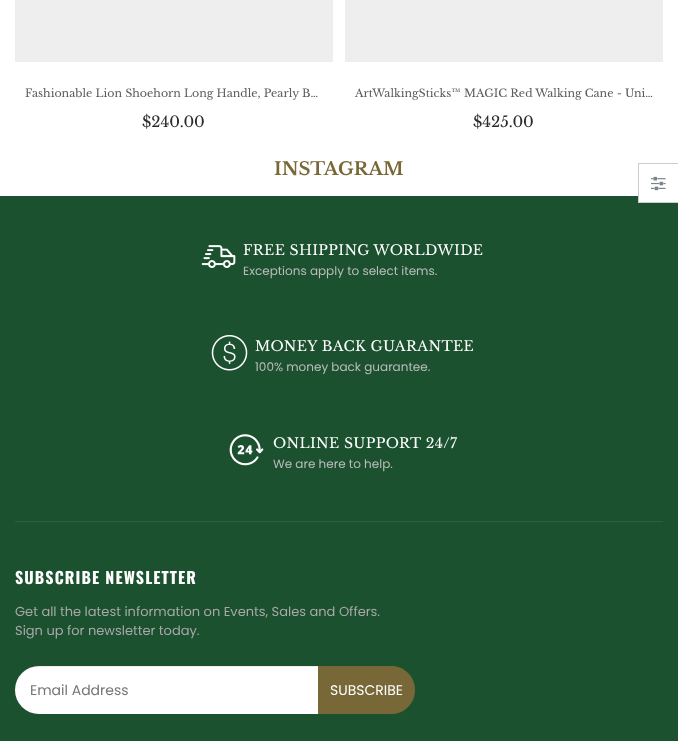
<svg xmlns="http://www.w3.org/2000/svg" width="678" height="741" viewBox="0 0 678 741">
  <rect width="100%" height="100%" fill="#ffffff"/>
  <rect x="15" y="0" width="318" height="62" fill="#eeeeee"/>
  <text x="25" y="97" font-family="Libre Baskerville" font-size="11" fill="#5b5b5f">Fashionable Lion Shoehorn Long Handle, Pearly B…</text>
  <text x="142" y="127" font-family="Libre Baskerville" font-size="15" fill="#2b2b2d">$240.00</text>
  <rect x="345" y="0" width="318" height="62" fill="#eeeeee"/>
  <text x="355" y="97" font-family="Libre Baskerville" font-size="11" fill="#5b5b5f">ArtWalkingSticks™ MAGIC Red Walking Cane - Uni…</text>
  <text x="473" y="127" font-family="Libre Baskerville" font-size="15" fill="#2b2b2d">$425.00</text>
  <text x="274" y="175" font-family="Libre Baskerville" font-size="18" font-weight="bold" fill="#786837">INSTAGRAM</text>
  <rect x="0" y="196" width="678" height="545" fill="#1c5130"/>
  <rect x="639" y="196" width="39" height="6" fill="#ffffff"/>
  <rect x="638" y="163" width="40" height="1" fill="#cccccc"/>
  <rect x="638" y="202" width="40" height="1" fill="#cccccc"/>
  <rect x="638" y="163" width="1" height="40" fill="#cccccc"/>
  <image x="651" y="176" width="15" height="15" href="img1.png"/>
  <image x="201" y="245" width="35" height="23" href="img2.png"/>
  <text x="243" y="255" font-family="Libre Baskerville" font-size="14" letter-spacing="0.35" fill="#ffffff">FREE SHIPPING WORLDWIDE</text>
  <text x="243" y="275" font-family="Poppins" font-size="12" fill="#bcbcbc">Exceptions apply to select items.</text>
  <image x="211" y="335" width="37" height="36" href="img3.png"/>
  <text x="255" y="351" font-family="Libre Baskerville" font-size="14" letter-spacing="0.35" fill="#ffffff">MONEY BACK GUARANTEE</text>
  <text x="255" y="371" font-family="Poppins" font-size="12" fill="#bcbcbc">100% money back guarantee.</text>
  <image x="229" y="434" width="35" height="32" href="img4.png"/>
  <text x="273" y="448" font-family="Libre Baskerville" font-size="14" letter-spacing="0.35" fill="#ffffff">ONLINE SUPPORT 24/7</text>
  <text x="273" y="468" font-family="Poppins" font-size="12" fill="#bcbcbc">We are here to help.</text>
  <rect x="15" y="521" width="648" height="1" fill="#22643b"/>
  <text x="15" y="584" font-family="Oswald" font-size="16" font-weight="bold" letter-spacing="1.1" fill="#ffffff">SUBSCRIBE NEWSLETTER</text>
  <text x="15" y="616" font-family="Poppins" font-size="13" fill="#a8a8a8">Get all the latest information on Events, Sales and Offers.</text>
  <text x="15" y="635" font-family="Poppins" font-size="13" fill="#a8a8a8">Sign up for newsletter today.</text>
  <rect x="15" y="666" width="396" height="48" rx="24" fill="#ffffff"/>
  <path d="M39 667H387C400 667 411 678 411 691C411 677 400 666 387 666H39C26 666 15 677 15 691C15 678 26 667 39 667Z" fill="#000000" fill-opacity="0.07"/>
  <text x="30" y="695" font-family="Poppins" font-size="14" fill="#757575">Email Address</text>
  <path d="M318 666H391C404.5 666 415 676.5 415 690C415 703.5 404.5 714 391 714H318Z" fill="#786837"/>
  <text x="330" y="695" font-family="Poppins" font-size="14" fill="#ffffff">SUBSCRIBE</text>
</svg>
